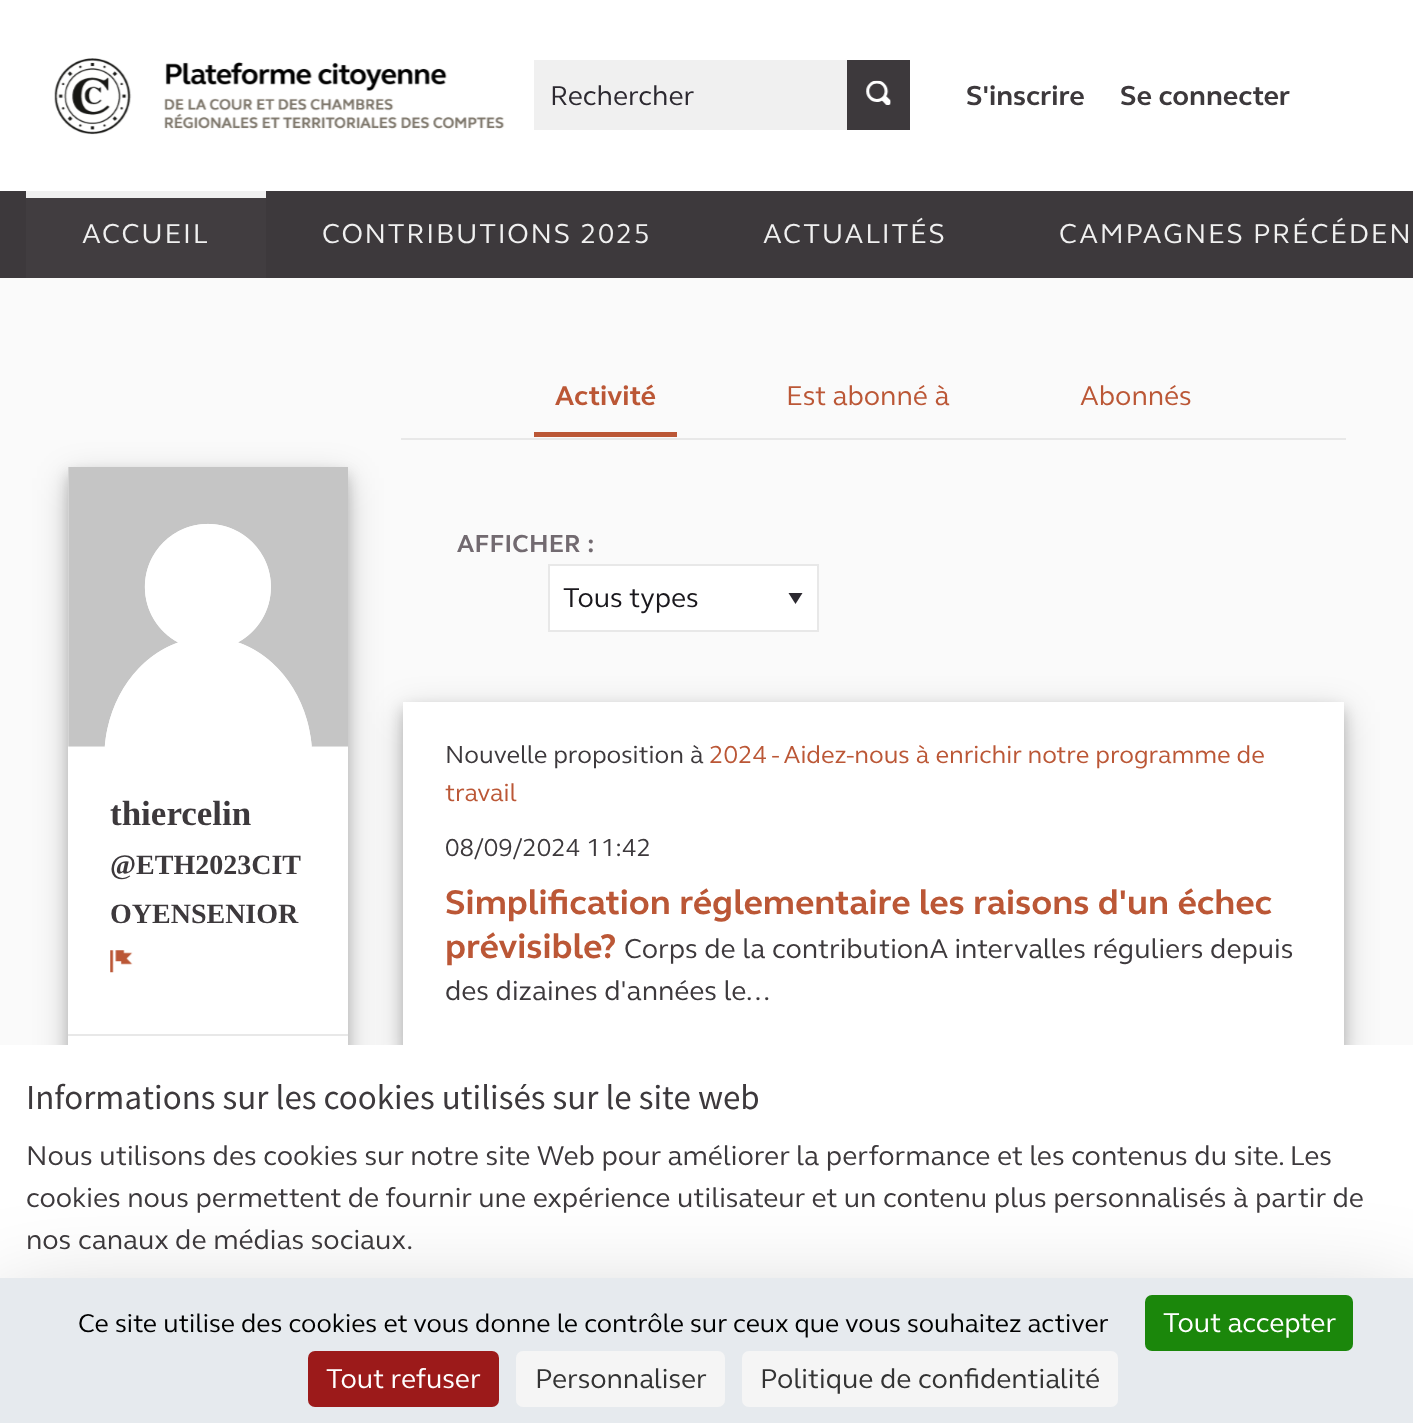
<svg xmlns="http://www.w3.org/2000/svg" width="1413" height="1423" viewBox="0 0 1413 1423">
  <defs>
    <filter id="blur1" x="-50%" y="-200%" width="200%" height="500%"><feGaussianBlur stdDeviation="17.5"/></filter>
    <filter id="blur2" x="-50%" y="-200%" width="200%" height="500%"><feGaussianBlur stdDeviation="7"/></filter>
    <filter id="blur3" x="-50%" y="-200%" width="200%" height="500%"><feGaussianBlur stdDeviation="52.5"/></filter>
  </defs>
  <rect width="100%" height="100%" fill="#fafafa"/>
  <rect x="0" y="0" width="1413" height="191" fill="#ffffff"/>
  <image x="54" y="58" width="451" height="77" href="img1.png"/>
  <rect x="534" y="60" width="313" height="70" fill="#f0f0f0"/>
  <text x="550" y="105" font-family="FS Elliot" font-size="28" fill="#2c2930">Rechercher</text>
  <rect x="847" y="60" width="63" height="70" fill="#3d393c"/>
  <image x="866" y="80" width="25" height="25" href="img2.png"/>
  <text x="966" y="105" font-family="FS Elliot" font-size="28" font-weight="bold" fill="#3d393c">S'inscrire</text>
  <text x="1120" y="105" font-family="FS Elliot" font-size="28" font-weight="bold" fill="#3d393c">Se connecter</text>
  <rect x="0" y="191" width="1413" height="87" fill="#3d393c"/>
  <rect x="26" y="198" width="240" height="80" fill="#413d40"/>
  <rect x="26" y="191" width="240" height="7" fill="#f0f0f0"/>
  <text x="82" y="243" font-family="FS Elliot" font-size="28" letter-spacing="1.75" fill="#f0f0f0">ACCUEIL</text>
  <text x="322" y="243" font-family="FS Elliot" font-size="28" letter-spacing="1.75" fill="#f0f0f0">CONTRIBUTIONS 2025</text>
  <text x="763" y="243" font-family="FS Elliot" font-size="28" letter-spacing="1.75" fill="#f0f0f0">ACTUALITÉS</text>
  <text x="1059" y="243" font-family="FS Elliot" font-size="28" letter-spacing="1.75" fill="#f0f0f0">CAMPAGNES PRÉCÉDEN</text>
  <rect x="401" y="438" width="945" height="2" fill="#e8e8e8"/>
  <rect x="534" y="432" width="143" height="5" fill="#bb5736"/>
  <text x="555" y="405" font-family="FS Elliot" font-size="28" font-weight="bold" fill="#bb5736">Activité</text>
  <text x="786" y="405" font-family="FS Elliot" font-size="28" fill="#bb5736">Est abonné à</text>
  <text x="1080" y="405" font-family="FS Elliot" font-size="28" fill="#bb5736">Abonnés</text>
  <rect x="68" y="478" width="280" height="822" fill="#000000" fill-opacity="0.19" filter="url(#blur1)"/>
  <rect x="68" y="474" width="280" height="823" fill="#000000" fill-opacity="0.2" filter="url(#blur2)"/>
  <rect x="68" y="467" width="280" height="578" fill="#ffffff"/>
  <image x="68" y="467" width="280" height="280" href="img3.png"/>
  <text x="110" y="825" font-family="Liberation Serif" font-size="35" font-weight="bold" fill="#3d393c">thiercelin</text>
  <text x="110" y="874" font-family="Liberation Serif" font-size="28" font-weight="bold" fill="#3d393c">@ETH2023CIT</text>
  <text x="110" y="923" font-family="Liberation Serif" font-size="28" font-weight="bold" fill="#3d393c">OYENSENIOR</text>
  <image x="110" y="950" width="23" height="23" href="img4.png"/>
  <rect x="68" y="1034" width="280" height="2" fill="#e8e8e8"/>
  <text x="457" y="552" font-family="FS Elliot" font-size="25.2" font-weight="bold" letter-spacing="0.25" fill="#726a70">AFFICHER :</text>
  <rect x="550" y="566" width="267" height="64" fill="#ffffff"/>
  <path d="M788.5 593H802.5L795.5 604Z" fill="#2c2930"/>
  <rect x="549" y="565" width="269" height="66" fill="none" stroke="#e8e8e8" stroke-width="2"/>
  <text x="563" y="607" font-family="FS Elliot" font-size="28" fill="#1a181d">Tous types</text>
  <rect x="403" y="712" width="941" height="357" fill="#000000" fill-opacity="0.19" filter="url(#blur1)"/>
  <rect x="403" y="709" width="941" height="357" fill="#000000" fill-opacity="0.2" filter="url(#blur2)"/>
  <rect x="403" y="702" width="941" height="343" fill="#ffffff"/>
  <text x="445" y="763" font-family="FS Elliot" font-size="25.2" fill="#3d393c">Nouvelle proposition à</text>
  <text x="709" y="763" font-family="FS Elliot" font-size="25.2" fill="#bb5736">2024 - Aidez-nous à enrichir notre programme de</text>
  <text x="445" y="801" font-family="FS Elliot" font-size="25.2" fill="#bb5736">travail</text>
  <text x="445" y="856" font-family="FS Elliot" font-size="25.2" fill="#3d393c">08/09/2024 11:42</text>
  <text x="445" y="914" font-family="FS Elliot" font-size="35" font-weight="bold" fill="#bb5736">Simplification réglementaire les raisons d'un échec</text>
  <text x="445" y="958" font-family="FS Elliot" font-size="35" font-weight="bold" fill="#bb5736">prévisible?</text>
  <text x="624" y="958" font-family="FS Elliot" font-size="28" fill="#3d393c">Corps de la contributionA intervalles réguliers depuis</text>
  <text x="445" y="1000" font-family="FS Elliot" font-size="28" fill="#3d393c">des dizaines d'années le...</text>
  <rect x="0" y="1045" width="1413" height="233" fill="#ffffff"/>
  <text x="26" y="1109" font-family="Source Sans Pro" font-size="35" fill="#3d393c">Informations sur les cookies utilisés sur le site web</text>
  <text x="26" y="1165" font-family="FS Elliot" font-size="28" fill="#3d393c">Nous utilisons des cookies sur notre site Web pour améliorer la performance et les contenus du site. Les</text>
  <text x="26" y="1207" font-family="FS Elliot" font-size="28" fill="#3d393c">cookies nous permettent de fournir une expérience utilisateur et un contenu plus personnalisés à partir de</text>
  <text x="26" y="1249" font-family="FS Elliot" font-size="28" fill="#3d393c">nos canaux de médias sociaux.</text>
  <rect x="0" y="1313" width="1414" height="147" fill="#000000" fill-opacity="0.25" filter="url(#blur3)"/>
  <rect x="0" y="1278" width="1413" height="145" fill="#e6eaee"/>
  <text x="78" y="1332" font-family="FS Elliot" font-size="26.25" fill="#000000">Ce site utilise des cookies et vous donne le contrôle sur ceux que vous souhaitez activer</text>
  <rect x="1145" y="1295" width="208" height="56" rx="7" fill="#1b870b"/>
  <text x="1163" y="1332" font-family="FS Elliot" font-size="28" fill="#ffffff">Tout accepter</text>
  <rect x="308" y="1351" width="191" height="56" rx="7" fill="#9c1a1a"/>
  <text x="326" y="1388" font-family="FS Elliot" font-size="28" fill="#ffffff">Tout refuser</text>
  <rect x="516" y="1351" width="209" height="56" rx="7" fill="#f5f5f5"/>
  <text x="535" y="1388" font-family="FS Elliot" font-size="28" fill="#333333">Personnaliser</text>
  <rect x="742" y="1351" width="376" height="56" rx="7" fill="#f5f5f5"/>
  <text x="760" y="1388" font-family="FS Elliot" font-size="28" fill="#333333">Politique de confidentialité</text>
</svg>
